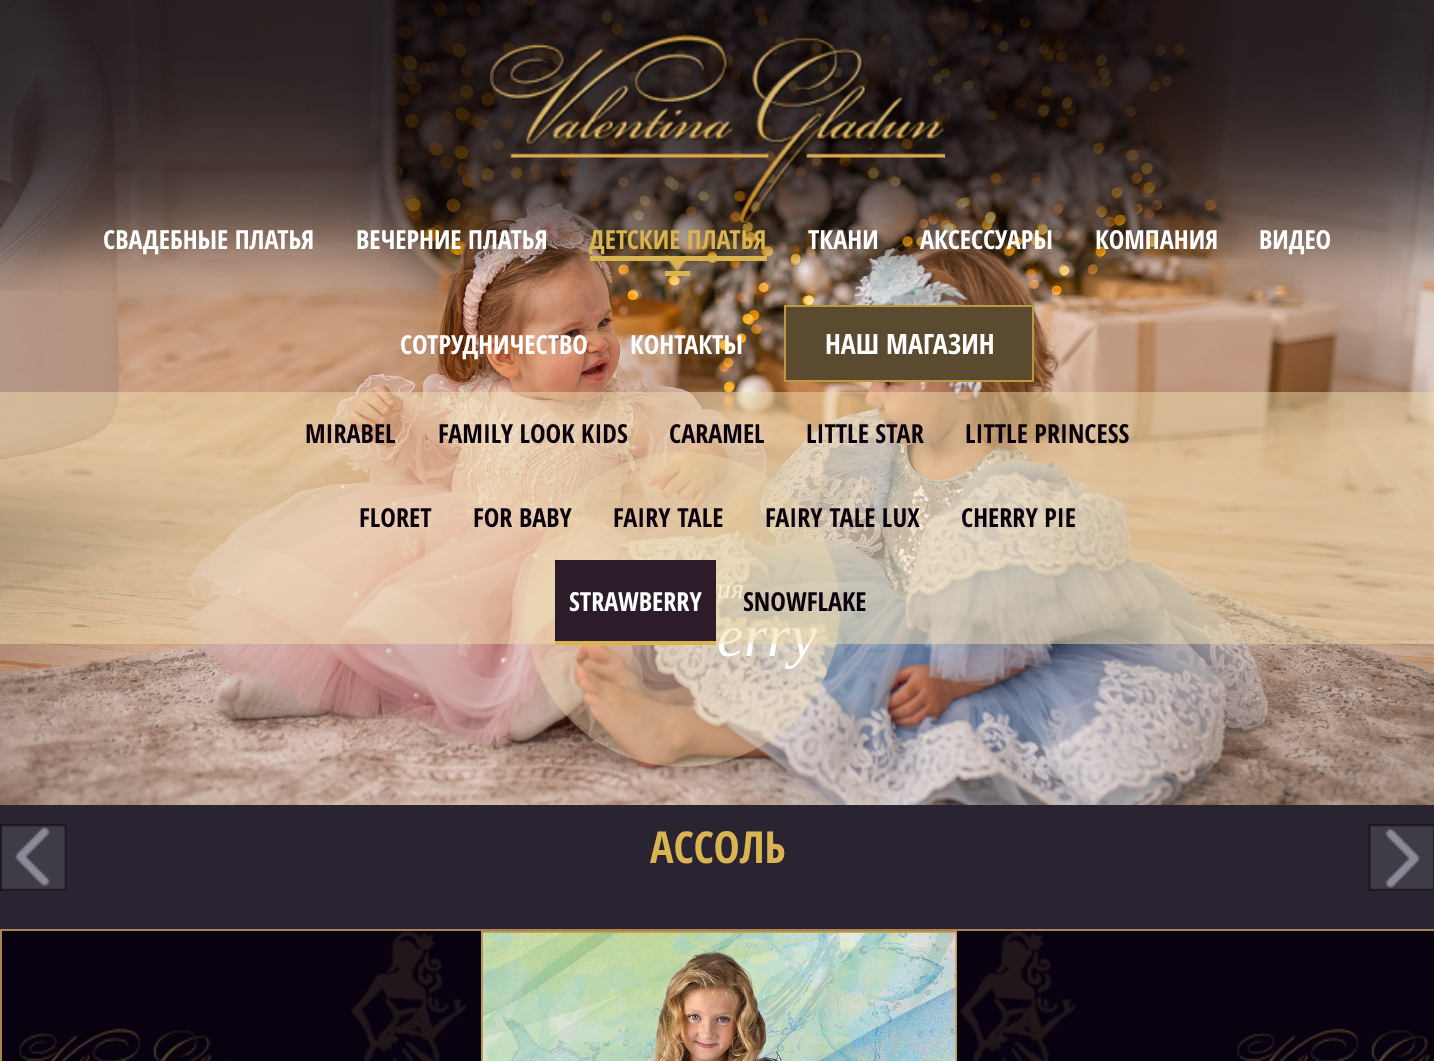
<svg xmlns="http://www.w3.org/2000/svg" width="1434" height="1061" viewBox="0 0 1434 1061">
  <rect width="100%" height="100%" fill="#292332"/>
  <image x="0" y="0" width="1434" height="805" href="img1.png"/>
  <image x="0" y="0" width="1434" height="291" href="img2.png"/>
  <image x="490" y="35" width="455" height="189" href="img3.png"/>
  <text x="103" y="249" font-family="Open Sans Condensed" font-size="26.25" font-weight="bold" fill="#ffffff">СВАДЕБНЫЕ ПЛАТЬЯ</text>
  <rect x="590" y="256" width="177" height="5" fill="#d8b550"/>
  <rect x="665" y="271" width="25" height="5" fill="#d8b550"/>
  <text x="589" y="249" font-family="Open Sans Condensed" font-size="26.25" font-weight="bold" fill="#d8b550">ДЕТСКИЕ ПЛАТЬЯ</text>
  <image x="665" y="255" width="25" height="16" href="img4.png"/>
  <circle cx="682.5" cy="609.5" r="157.5" fill="#f1daae" fill-opacity="0.4"/>
  <text x="717" y="598" font-family="Liberation Serif" font-size="28" font-style="italic" fill="#ffffff">ия</text>
  <text x="717" y="656" font-family="Liberation Serif" font-size="60" font-style="italic" fill="#ffffff">erry</text>
  <rect x="0" y="392" width="1434" height="252" fill="#efdcac" fill-opacity="0.5"/>
  <text x="305" y="443" font-family="Open Sans Condensed" font-size="26.25" font-weight="bold" fill="#0a000d">MIRABEL</text>
  <text x="438" y="443" font-family="Open Sans Condensed" font-size="26.25" font-weight="bold" fill="#0a000d">FAMILY LOOK KIDS</text>
  <text x="669" y="443" font-family="Open Sans Condensed" font-size="26.25" font-weight="bold" fill="#0a000d">CARAMEL</text>
  <text x="806" y="443" font-family="Open Sans Condensed" font-size="26.25" font-weight="bold" fill="#0a000d">LITTLE STAR</text>
  <text x="965" y="443" font-family="Open Sans Condensed" font-size="26.25" font-weight="bold" fill="#0a000d">LITTLE PRINCESS</text>
  <text x="359" y="527" font-family="Open Sans Condensed" font-size="26.25" font-weight="bold" fill="#0a000d">FLORET</text>
  <text x="473" y="527" font-family="Open Sans Condensed" font-size="26.25" font-weight="bold" fill="#0a000d">FOR BABY</text>
  <text x="613" y="527" font-family="Open Sans Condensed" font-size="26.25" font-weight="bold" fill="#0a000d">FAIRY TALE</text>
  <text x="765" y="527" font-family="Open Sans Condensed" font-size="26.25" font-weight="bold" fill="#0a000d">FAIRY TALE LUX</text>
  <text x="961" y="527" font-family="Open Sans Condensed" font-size="26.25" font-weight="bold" fill="#0a000d">CHERRY PIE</text>
  <rect x="555" y="560" width="161" height="81" fill="#2c1b29"/>
  <rect x="555" y="641" width="161" height="4" fill="#d8b550"/>
  <text x="569" y="611" font-family="Open Sans Condensed" font-size="26.25" font-weight="bold" fill="#ffffff">STRAWBERRY</text>
  <text x="743" y="611" font-family="Open Sans Condensed" font-size="26.25" font-weight="bold" fill="#0a000d">SNOWFLAKE</text>
  <text x="1095" y="249" font-family="Open Sans Condensed" font-size="26.25" font-weight="bold" fill="#ffffff">КОМПАНИЯ</text>
  <text x="1259" y="249" font-family="Open Sans Condensed" font-size="26.25" font-weight="bold" fill="#ffffff">ВИДЕО</text>
  <text x="356" y="249" font-family="Open Sans Condensed" font-size="26.25" font-weight="bold" fill="#ffffff">ВЕЧЕРНИЕ ПЛАТЬЯ</text>
  <text x="808" y="249" font-family="Open Sans Condensed" font-size="26.25" font-weight="bold" fill="#ffffff">ТКАНИ</text>
  <text x="920" y="249" font-family="Open Sans Condensed" font-size="26.25" font-weight="bold" fill="#ffffff">АКСЕССУАРЫ</text>
  <text x="400" y="354" font-family="Open Sans Condensed" font-size="26.25" font-weight="bold" fill="#ffffff">СОТРУДНИЧЕСТВО</text>
  <text x="630" y="354" font-family="Open Sans Condensed" font-size="26.25" font-weight="bold" fill="#ffffff">КОНТАКТЫ</text>
  <rect x="785" y="306" width="248" height="75" fill="#594a30" stroke="#bb9940" stroke-width="2"/>
  <text x="825" y="354" font-family="Open Sans Condensed" font-size="28" font-weight="bold" fill="#ffffff">НАШ МАГАЗИН</text>
  <image x="0" y="824" width="67" height="67" href="img5.png"/>
  <image x="1368" y="824" width="66" height="67" href="img6.png"/>
  <text x="650" y="863" font-family="Open Sans Condensed" font-size="44" font-weight="bold" fill="#d8b550">АССОЛЬ</text>
  <rect x="2" y="931" width="1432" height="130" fill="#08010f"/>
  <image x="19" y="931" width="1411" height="130" href="img7.png"/>
  <rect x="1" y="930" width="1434" height="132" fill="none" stroke="#aa8258" stroke-width="2"/>
  <rect x="482" y="932" width="474" height="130" fill="none" stroke="#bb9940" stroke-width="2"/>
  <image x="483" y="932" width="473" height="129" href="img8.png"/>
</svg>
